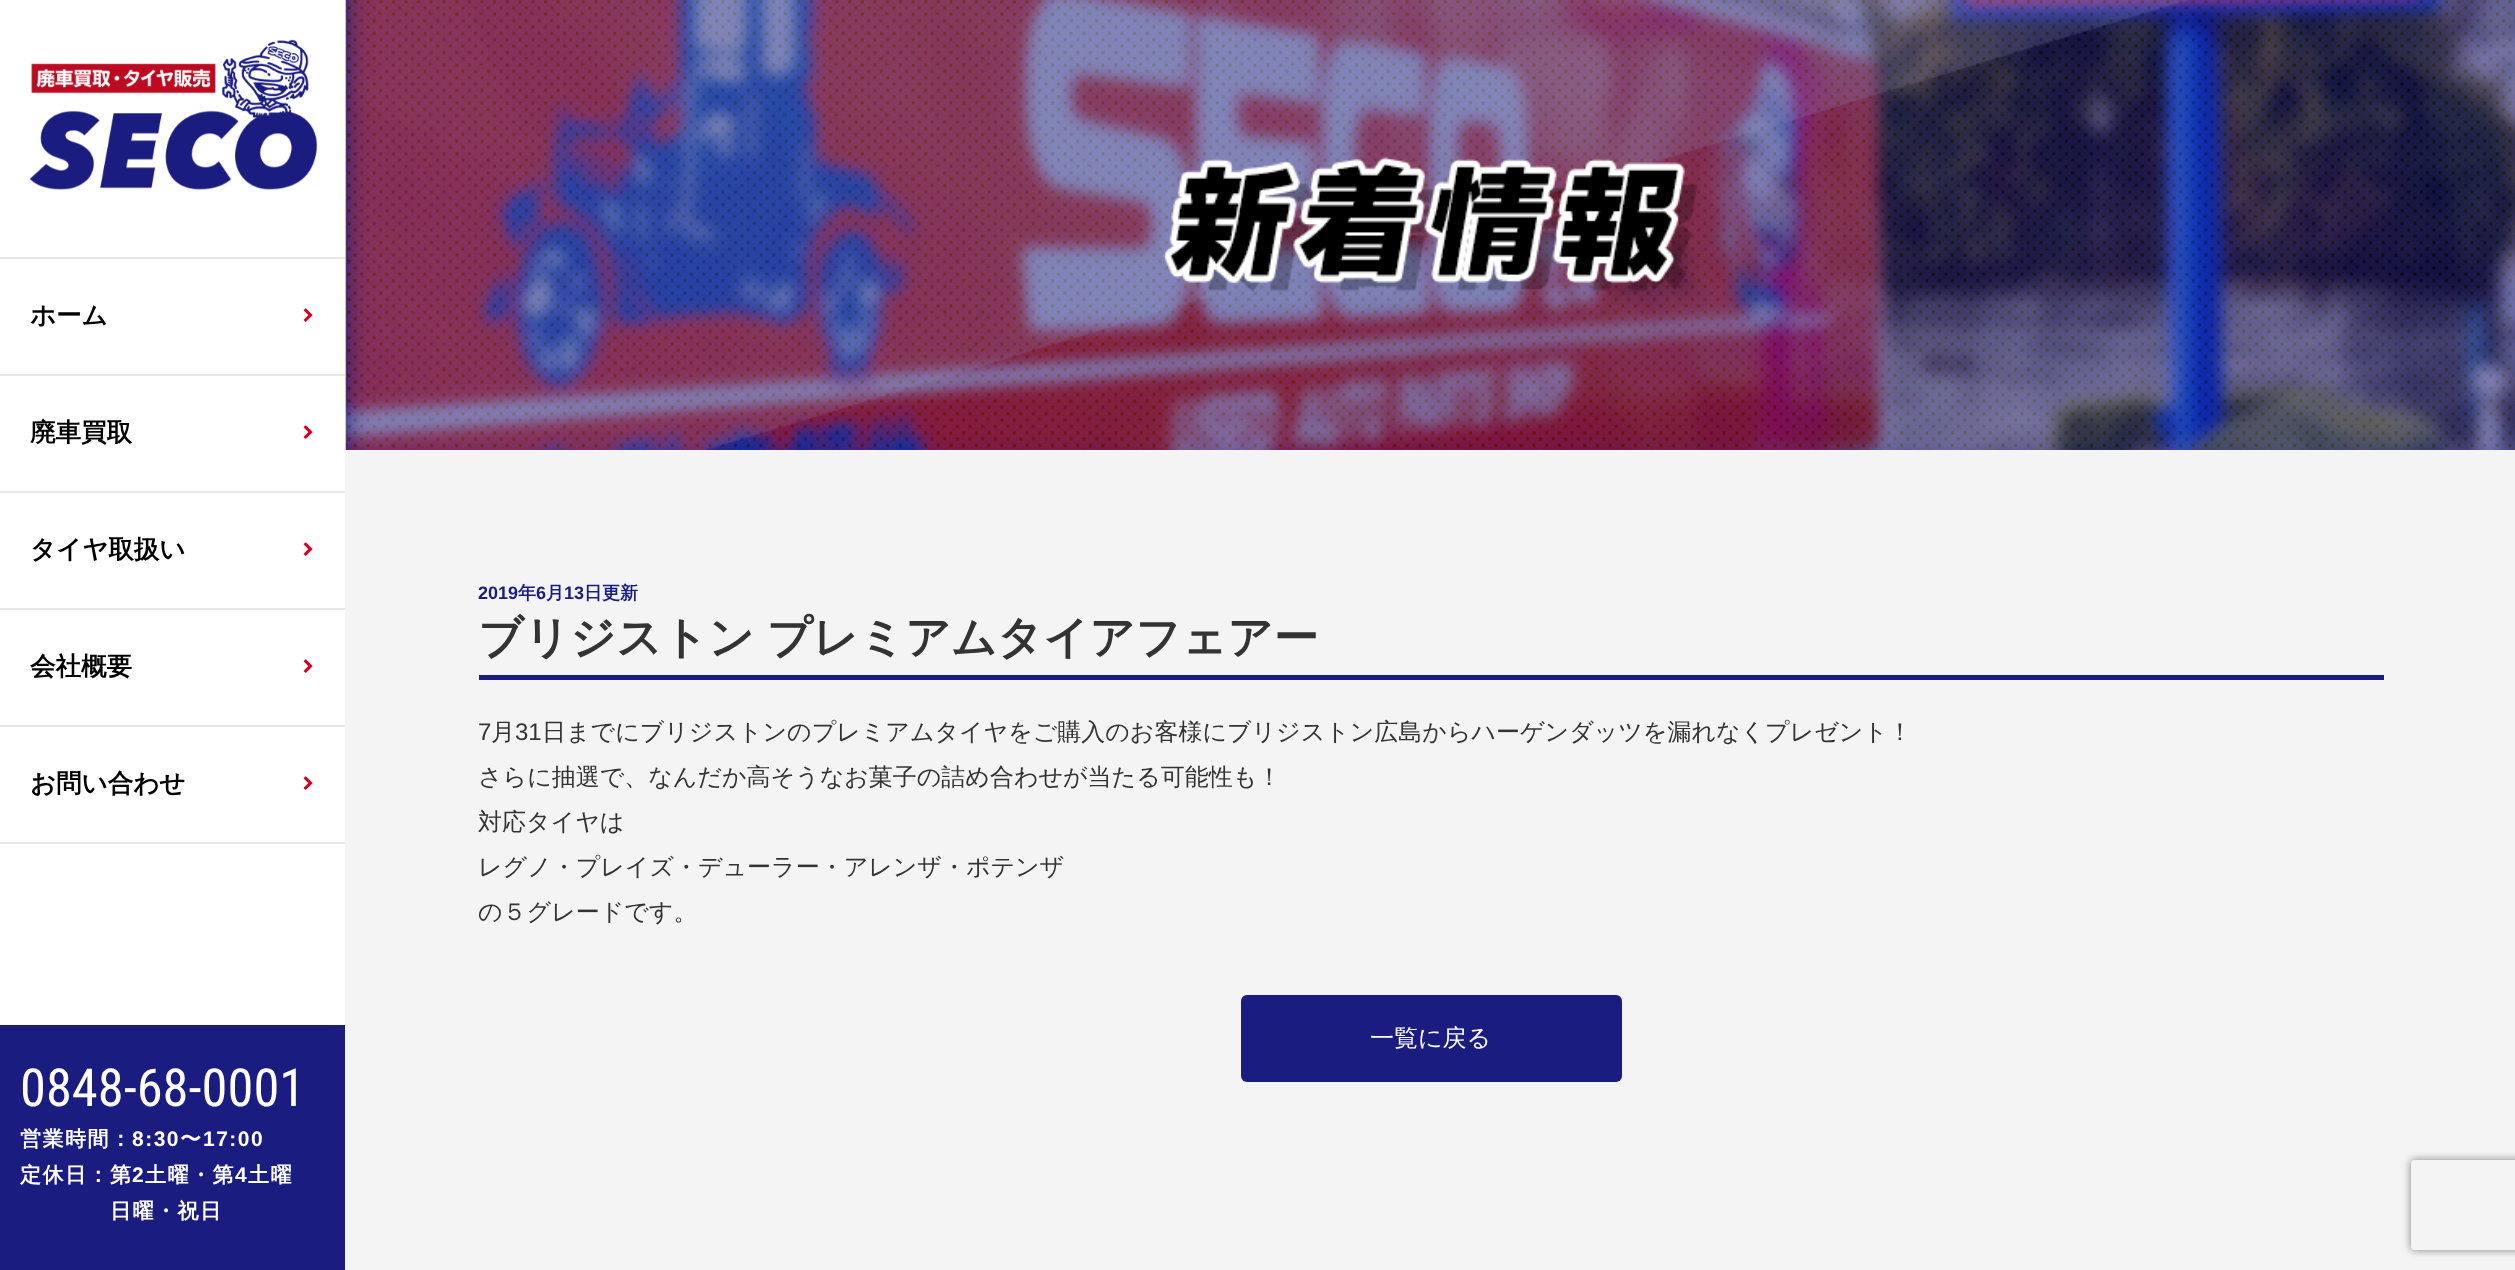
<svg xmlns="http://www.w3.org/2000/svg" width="2515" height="1270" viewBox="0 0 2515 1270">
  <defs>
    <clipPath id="clip1"><path d="M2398 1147H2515V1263H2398ZM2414 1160H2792C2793.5 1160 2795 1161.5 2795 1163V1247C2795 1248.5 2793.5 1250 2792 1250H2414C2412.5 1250 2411 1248.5 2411 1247V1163C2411 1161.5 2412.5 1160 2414 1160Z" clip-rule="evenodd"/></clipPath>
    <filter id="blur1" x="-50%" y="-200%" width="200%" height="500%"><feGaussianBlur stdDeviation="4"/></filter>
  </defs>
  <rect width="100%" height="100%" fill="#ffffff"/>
  <image x="29" y="39" width="289" height="151" href="img1.png"/>
  <rect x="0" y="257" width="345" height="2" fill="#e7e7e7"/>
  <rect x="0" y="374" width="345" height="2" fill="#e7e7e7"/>
  <text x="30" y="324" font-family="WenQuanYi Zen Hei" font-size="25.5" font-weight="bold" fill="#000000">ホーム</text>
  <image x="303" y="308" width="10" height="14" href="img2.png"/>
  <rect x="0" y="491" width="345" height="2" fill="#e7e7e7"/>
  <text x="30" y="441" font-family="WenQuanYi Zen Hei" font-size="25.5" font-weight="bold" fill="#000000">廃車買取</text>
  <image x="303" y="425" width="10" height="14" href="img2.png"/>
  <rect x="0" y="608" width="345" height="2" fill="#e7e7e7"/>
  <text x="30" y="558" font-family="WenQuanYi Zen Hei" font-size="25.5" font-weight="bold" fill="#000000">タイヤ取扱い</text>
  <image x="303" y="542" width="10" height="14" href="img2.png"/>
  <rect x="0" y="725" width="345" height="2" fill="#e7e7e7"/>
  <text x="30" y="675" font-family="WenQuanYi Zen Hei" font-size="25.5" font-weight="bold" fill="#000000">会社概要</text>
  <image x="303" y="659" width="10" height="14" href="img2.png"/>
  <rect x="0" y="842" width="345" height="2" fill="#e7e7e7"/>
  <text x="30" y="792" font-family="WenQuanYi Zen Hei" font-size="25.5" font-weight="bold" fill="#000000">お問い合わせ</text>
  <image x="303" y="776" width="10" height="14" href="img2.png"/>
  <rect x="0" y="1025" width="345" height="245" fill="#1b1c80"/>
  <text x="20" y="1106" font-family="Roboto Condensed" font-size="52.5" fill="#ffffff">0848-68-0001</text>
  <text x="20" y="1146" font-family="WenQuanYi Zen Hei" font-size="21" font-weight="bold" letter-spacing="1.5" fill="#ffffff">営業時間：</text>
  <text x="132" y="1146" font-family="Liberation Sans" font-size="21" font-weight="bold" letter-spacing="1.5" fill="#ffffff">8:30</text>
  <text x="180" y="1146" font-family="WenQuanYi Zen Hei" font-size="21" font-weight="bold" letter-spacing="1.5" fill="#ffffff">〜</text>
  <text x="203" y="1146" font-family="Liberation Sans" font-size="21" font-weight="bold" letter-spacing="1.5" fill="#ffffff">17:00</text>
  <text x="20" y="1182" font-family="WenQuanYi Zen Hei" font-size="21" font-weight="bold" letter-spacing="1.5" fill="#ffffff">定休日：第</text>
  <text x="132" y="1182" font-family="Liberation Sans" font-size="21" font-weight="bold" letter-spacing="1.5" fill="#ffffff">2</text>
  <text x="145" y="1182" font-family="WenQuanYi Zen Hei" font-size="21" font-weight="bold" letter-spacing="1.5" fill="#ffffff">土曜・第</text>
  <text x="235" y="1182" font-family="Liberation Sans" font-size="21" font-weight="bold" letter-spacing="1.5" fill="#ffffff">4</text>
  <text x="248" y="1182" font-family="WenQuanYi Zen Hei" font-size="21" font-weight="bold" letter-spacing="1.5" fill="#ffffff">土曜</text>
  <text x="110" y="1218" font-family="WenQuanYi Zen Hei" font-size="21" font-weight="bold" letter-spacing="1.5" fill="#ffffff">日曜・祝日</text>
  <rect x="345" y="0" width="2170" height="1270" fill="#f4f4f4"/>
  <image x="345" y="0" width="2170" height="450" href="img3.png"/>
  <image x="1163" y="157" width="535" height="135" href="img4.png"/>
  <rect x="479" y="675" width="1905" height="5" fill="#1b1c80"/>
  <text x="478" y="599" font-family="Liberation Sans" font-size="18" font-weight="bold" fill="#1b1c80">2019</text>
  <text x="518" y="599" font-family="WenQuanYi Zen Hei" font-size="18" font-weight="bold" fill="#1b1c80">年</text>
  <text x="536" y="599" font-family="Liberation Sans" font-size="18" font-weight="bold" fill="#1b1c80">6</text>
  <text x="546" y="599" font-family="WenQuanYi Zen Hei" font-size="18" font-weight="bold" fill="#1b1c80">月</text>
  <text x="564" y="599" font-family="Liberation Sans" font-size="18" font-weight="bold" fill="#1b1c80">13</text>
  <text x="584" y="599" font-family="WenQuanYi Zen Hei" font-size="18" font-weight="bold" fill="#1b1c80">日更新</text>
  <text x="478" y="653" word-spacing="-1" font-family="WenQuanYi Zen Hei" font-size="45" font-weight="bold" fill="#333333">ブリジストン プレミアムタイアフェアー</text>
  <text x="478" y="740" font-family="Liberation Sans" font-size="24" fill="#333333">7</text>
  <text x="491" y="740" font-family="WenQuanYi Zen Hei" font-size="24" font-weight="500" fill="#333333">月</text>
  <text x="515" y="740" font-family="Liberation Sans" font-size="24" fill="#333333">31</text>
  <text x="542" y="740" font-family="WenQuanYi Zen Hei" font-size="24" font-weight="500" fill="#333333">日までにブリジストンのプレミアムタイヤをご購入のお客様にブリジストン広島からハーゲンダッツを漏れなくプレゼント！</text>
  <text x="478" y="785" font-family="WenQuanYi Zen Hei" font-size="24" font-weight="500" fill="#333333">さらに抽選で、なんだか高そうなお菓子の詰め合わせが当たる可能性も！</text>
  <text x="478" y="830" font-family="WenQuanYi Zen Hei" font-size="24" font-weight="500" fill="#333333">対応タイヤは</text>
  <text x="478" y="875" font-family="WenQuanYi Zen Hei" font-size="24" font-weight="500" fill="#333333">レグノ・プレイズ・デューラー・アレンザ・ポテンザ</text>
  <text x="478" y="920" font-family="WenQuanYi Zen Hei" font-size="24" font-weight="500" fill="#333333">の５グレードです。</text>
  <rect x="1241" y="995" width="381" height="87" rx="6" fill="#1b1c80"/>
  <text x="1370" y="1046" font-family="WenQuanYi Zen Hei" font-size="24" font-weight="500" fill="#ffffff">一覧に戻る</text>
  <g clip-path="url(#clip1)">
    <rect x="2411" y="1160" width="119" height="90" rx="3" fill="#808080" filter="url(#blur1)"/>
  </g>
</svg>
